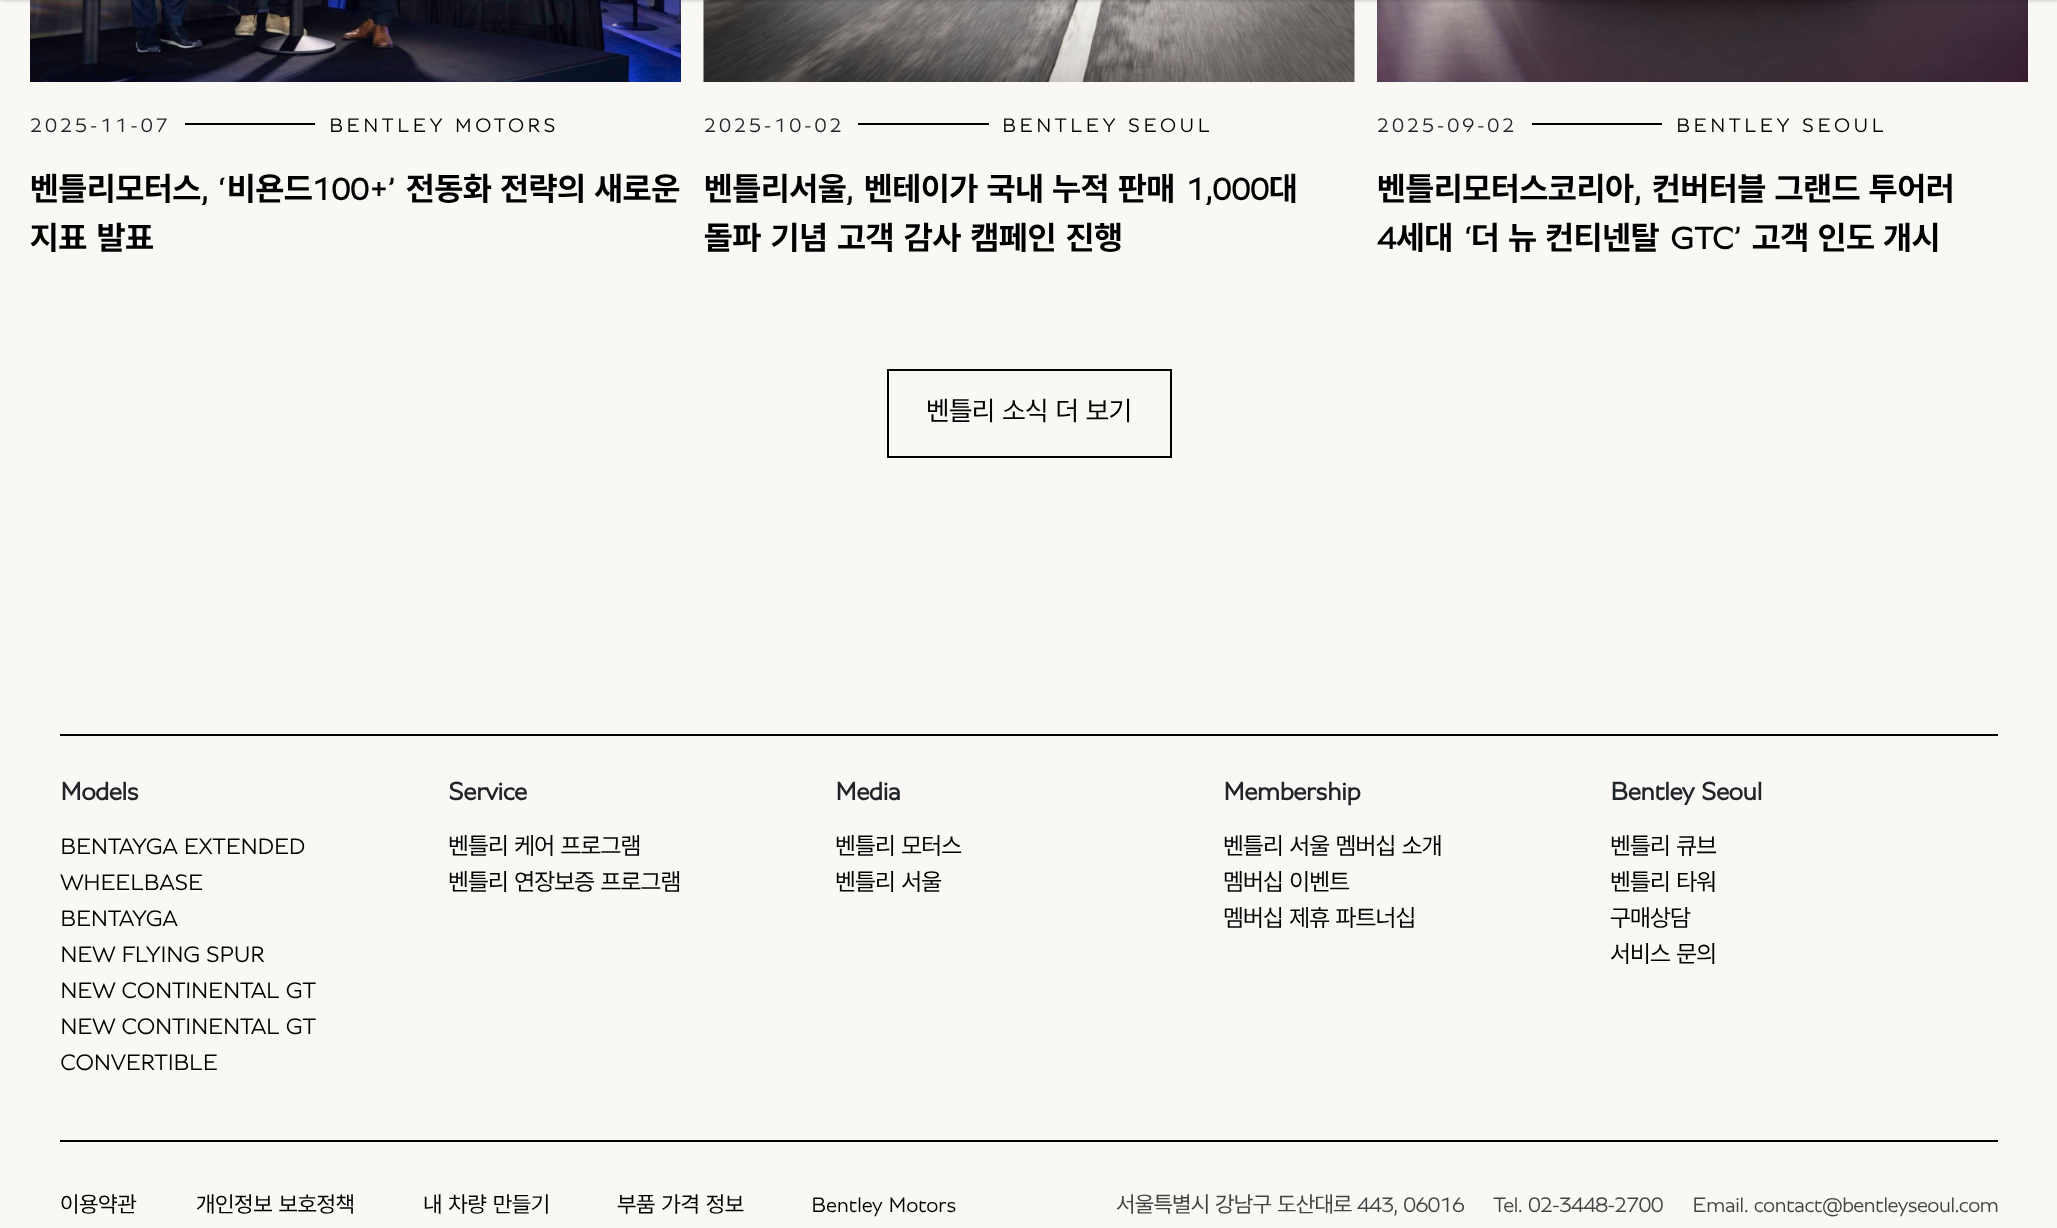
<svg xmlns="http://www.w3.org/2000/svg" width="2057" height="1228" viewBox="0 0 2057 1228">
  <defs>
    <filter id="blur1" x="-50%" y="-200%" width="200%" height="500%"><feGaussianBlur stdDeviation="2"/></filter>
  </defs>
  <rect width="100%" height="100%" fill="#f9f8f5"/>
  <image x="30" y="0" width="651" height="82" href="img1.png"/>
  <image x="703" y="0" width="652" height="82" href="img2.png"/>
  <image x="1377" y="0" width="651" height="82" href="img3.png"/>
  <rect x="0" y="-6" width="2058" height="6" fill="#000000" fill-opacity="0.25" filter="url(#blur1)"/>
  <text x="30" y="132" font-family="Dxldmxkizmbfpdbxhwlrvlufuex" font-size="21" font-weight="300" letter-spacing="3" fill="#212529">2025-11-07</text>
  <rect x="185" y="123" width="130" height="2" fill="#000000"/>
  <text x="329" y="132" font-family="Dxldmxkizmbfpdbxhwlrvlufuex" font-size="21" font-weight="300" letter-spacing="3" fill="#000000">BENTLEY MOTORS</text>
  <text x="30" y="200" font-family="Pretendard" font-size="33" font-weight="bold" fill="#000000">벤틀리모터스</text>
  <text x="201" y="200" font-family="Dxldmxkizmbfpdbxhwlrvlufuex" font-size="33" font-weight="bold" fill="#000000">, ‘</text>
  <text x="227" y="200" font-family="Pretendard" font-size="33" font-weight="bold" fill="#000000">비욘드</text>
  <text x="312" y="200" font-family="Dxldmxkizmbfpdbxhwlrvlufuex" font-size="33" font-weight="bold" fill="#000000">100+’</text>
  <text x="406" y="200" word-spacing="1" font-family="Pretendard" font-size="33" font-weight="bold" fill="#000000">전동화 전략의 새로운</text>
  <text x="30" y="249" word-spacing="2" font-family="Pretendard" font-size="33" font-weight="bold" fill="#000000">지표 발표</text>
  <text x="704" y="132" font-family="Dxldmxkizmbfpdbxhwlrvlufuex" font-size="21" font-weight="300" letter-spacing="3" fill="#212529">2025-10-02</text>
  <rect x="858" y="123" width="131" height="2" fill="#000000"/>
  <text x="1002" y="132" font-family="Dxldmxkizmbfpdbxhwlrvlufuex" font-size="21" font-weight="300" letter-spacing="3" fill="#000000">BENTLEY SEOUL</text>
  <text x="704" y="200" font-family="Pretendard" font-size="33" font-weight="bold" fill="#000000">벤틀리서울</text>
  <text x="846" y="200" font-family="Dxldmxkizmbfpdbxhwlrvlufuex" font-size="33" font-weight="bold" fill="#000000">,</text>
  <text x="864" y="200" word-spacing="1" font-family="Pretendard" font-size="33" font-weight="bold" fill="#000000">벤테이가 국내 누적 판매</text>
  <text x="1186" y="200" font-family="Dxldmxkizmbfpdbxhwlrvlufuex" font-size="33" font-weight="bold" fill="#000000">1,000</text>
  <text x="1269" y="200" font-family="Pretendard" font-size="33" font-weight="bold" fill="#000000">대</text>
  <text x="704" y="249" word-spacing="2" font-family="Pretendard" font-size="33" font-weight="bold" fill="#000000">돌파 기념 고객 감사 캠페인 진행</text>
  <text x="1377" y="132" font-family="Dxldmxkizmbfpdbxhwlrvlufuex" font-size="21" font-weight="300" letter-spacing="3" fill="#212529">2025-09-02</text>
  <rect x="1532" y="123" width="130" height="2" fill="#000000"/>
  <text x="1676" y="132" font-family="Dxldmxkizmbfpdbxhwlrvlufuex" font-size="21" font-weight="300" letter-spacing="3" fill="#000000">BENTLEY SEOUL</text>
  <text x="1377" y="200" font-family="Pretendard" font-size="33" font-weight="bold" fill="#000000">벤틀리모터스코리아</text>
  <text x="1634" y="200" font-family="Dxldmxkizmbfpdbxhwlrvlufuex" font-size="33" font-weight="bold" fill="#000000">,</text>
  <text x="1652" y="200" word-spacing="1" font-family="Pretendard" font-size="33" font-weight="bold" fill="#000000">컨버터블 그랜드 투어러</text>
  <text x="1377" y="249" font-family="Dxldmxkizmbfpdbxhwlrvlufuex" font-size="33" font-weight="bold" fill="#000000">4</text>
  <text x="1396" y="249" font-family="Pretendard" font-size="33" font-weight="bold" fill="#000000">세대</text>
  <text x="1464" y="249" font-family="Dxldmxkizmbfpdbxhwlrvlufuex" font-size="33" font-weight="bold" fill="#000000">‘</text>
  <text x="1471" y="249" word-spacing="1" font-family="Pretendard" font-size="33" font-weight="bold" fill="#000000">더 뉴 컨티넨탈</text>
  <text x="1670" y="249" font-family="Dxldmxkizmbfpdbxhwlrvlufuex" font-size="33" font-weight="bold" fill="#000000">GTC’</text>
  <text x="1752" y="249" word-spacing="1" font-family="Pretendard" font-size="33" font-weight="bold" fill="#000000">고객 인도 개시</text>
  <rect x="888" y="370" width="283" height="87" fill="none" stroke="#000000" stroke-width="2"/>
  <text x="926" y="420" word-spacing="1" font-family="Pretendard" font-size="27" letter-spacing="-0.4" fill="#000000">벤틀리 소식 더 보기</text>
  <rect x="60" y="734" width="1938" height="2" fill="#000000"/>
  <text x="60" y="800" font-family="Dxldmxkizmbfpdbxhwlrvlufuex" font-size="27" font-weight="bold" letter-spacing="-0.75" fill="#212529">Models</text>
  <text x="60" y="854" font-family="Dxldmxkizmbfpdbxhwlrvlufuex" font-size="24" font-weight="300" letter-spacing="-0.75" fill="#000000">BENTAYGA EXTENDED</text>
  <text x="60" y="890" font-family="Dxldmxkizmbfpdbxhwlrvlufuex" font-size="24" font-weight="300" letter-spacing="-0.75" fill="#000000">WHEELBASE</text>
  <text x="60" y="926" font-family="Dxldmxkizmbfpdbxhwlrvlufuex" font-size="24" font-weight="300" letter-spacing="-0.75" fill="#000000">BENTAYGA</text>
  <text x="60" y="962" font-family="Dxldmxkizmbfpdbxhwlrvlufuex" font-size="24" font-weight="300" letter-spacing="-0.75" fill="#000000">NEW FLYING SPUR</text>
  <text x="60" y="998" font-family="Dxldmxkizmbfpdbxhwlrvlufuex" font-size="24" font-weight="300" letter-spacing="-0.75" fill="#000000">NEW CONTINENTAL GT</text>
  <text x="60" y="1034" font-family="Dxldmxkizmbfpdbxhwlrvlufuex" font-size="24" font-weight="300" letter-spacing="-0.75" fill="#000000">NEW CONTINENTAL GT</text>
  <text x="60" y="1070" font-family="Dxldmxkizmbfpdbxhwlrvlufuex" font-size="24" font-weight="300" letter-spacing="-0.75" fill="#000000">CONVERTIBLE</text>
  <text x="448" y="800" font-family="Dxldmxkizmbfpdbxhwlrvlufuex" font-size="27" font-weight="bold" letter-spacing="-0.75" fill="#212529">Service</text>
  <text x="448" y="854" word-spacing="1" font-family="Pretendard" font-size="24" letter-spacing="-0.75" fill="#000000">벤틀리 케어 프로그램</text>
  <text x="448" y="890" word-spacing="1" font-family="Pretendard" font-size="24" letter-spacing="-0.75" fill="#000000">벤틀리 연장보증 프로그램</text>
  <text x="835" y="800" font-family="Dxldmxkizmbfpdbxhwlrvlufuex" font-size="27" font-weight="bold" letter-spacing="-0.75" fill="#212529">Media</text>
  <text x="835" y="854" word-spacing="1" font-family="Pretendard" font-size="24" letter-spacing="-0.75" fill="#000000">벤틀리 모터스</text>
  <text x="835" y="890" word-spacing="1" font-family="Pretendard" font-size="24" letter-spacing="-0.75" fill="#000000">벤틀리 서울</text>
  <text x="1223" y="800" font-family="Dxldmxkizmbfpdbxhwlrvlufuex" font-size="27" font-weight="bold" letter-spacing="-0.75" fill="#212529">Membership</text>
  <text x="1223" y="854" word-spacing="1" font-family="Pretendard" font-size="24" letter-spacing="-0.75" fill="#000000">벤틀리 서울 멤버십 소개</text>
  <text x="1223" y="890" word-spacing="1" font-family="Pretendard" font-size="24" letter-spacing="-0.75" fill="#000000">멤버십 이벤트</text>
  <text x="1223" y="926" word-spacing="1" font-family="Pretendard" font-size="24" letter-spacing="-0.75" fill="#000000">멤버십 제휴 파트너십</text>
  <text x="1610" y="800" font-family="Dxldmxkizmbfpdbxhwlrvlufuex" font-size="27" font-weight="bold" letter-spacing="-0.75" fill="#212529">Bentley Seoul</text>
  <text x="1610" y="854" word-spacing="1" font-family="Pretendard" font-size="24" letter-spacing="-0.75" fill="#000000">벤틀리 큐브</text>
  <text x="1610" y="890" word-spacing="1" font-family="Pretendard" font-size="24" letter-spacing="-0.75" fill="#000000">벤틀리 타워</text>
  <text x="1610" y="926" font-family="Pretendard" font-size="24" letter-spacing="-0.75" fill="#000000">구매상담</text>
  <text x="1610" y="962" word-spacing="1" font-family="Pretendard" font-size="24" letter-spacing="-0.75" fill="#000000">서비스 문의</text>
  <rect x="60" y="1140" width="1938" height="2" fill="#000000"/>
  <text x="60" y="1212" font-family="Pretendard" font-size="22.5" letter-spacing="-0.4" fill="#000000">이용약관</text>
  <text x="196" y="1212" word-spacing="1" font-family="Pretendard" font-size="22.5" letter-spacing="-0.4" fill="#000000">개인정보 보호정책</text>
  <text x="423" y="1212" word-spacing="1" font-family="Pretendard" font-size="22.5" letter-spacing="-0.4" fill="#000000">내 차량 만들기</text>
  <text x="617" y="1212" word-spacing="1" font-family="Pretendard" font-size="22.5" letter-spacing="-0.4" fill="#000000">부품 가격 정보</text>
  <text x="811" y="1212" font-family="Dxldmxkizmbfpdbxhwlrvlufuex" font-size="22.5" font-weight="300" letter-spacing="-0.4" fill="#000000">Bentley Motors</text>
  <text x="1116" y="1212" font-family="Pretendard" font-size="22.5" letter-spacing="-0.75" fill="#444444">서울특별시</text>
  <text x="1215" y="1212" font-family="Pretendard" font-size="22.5" letter-spacing="-0.75" fill="#444444">강남구</text>
  <text x="1277" y="1212" font-family="Pretendard" font-size="22.5" letter-spacing="-0.75" fill="#444444">도산대로</text>
  <text x="1357" y="1212" font-family="Dxldmxkizmbfpdbxhwlrvlufuex" font-size="22.5" font-weight="300" letter-spacing="-0.75" fill="#444444">443, 06016</text>
  <text x="1493" y="1212" font-family="Dxldmxkizmbfpdbxhwlrvlufuex" font-size="22.5" font-weight="300" letter-spacing="-0.75" fill="#444444">Tel. 02-3448-2700</text>
  <text x="1692" y="1212" font-family="Dxldmxkizmbfpdbxhwlrvlufuex" font-size="22.5" font-weight="300" letter-spacing="-0.75" fill="#444444">Email. contact@bentleyseoul.com</text>
</svg>
